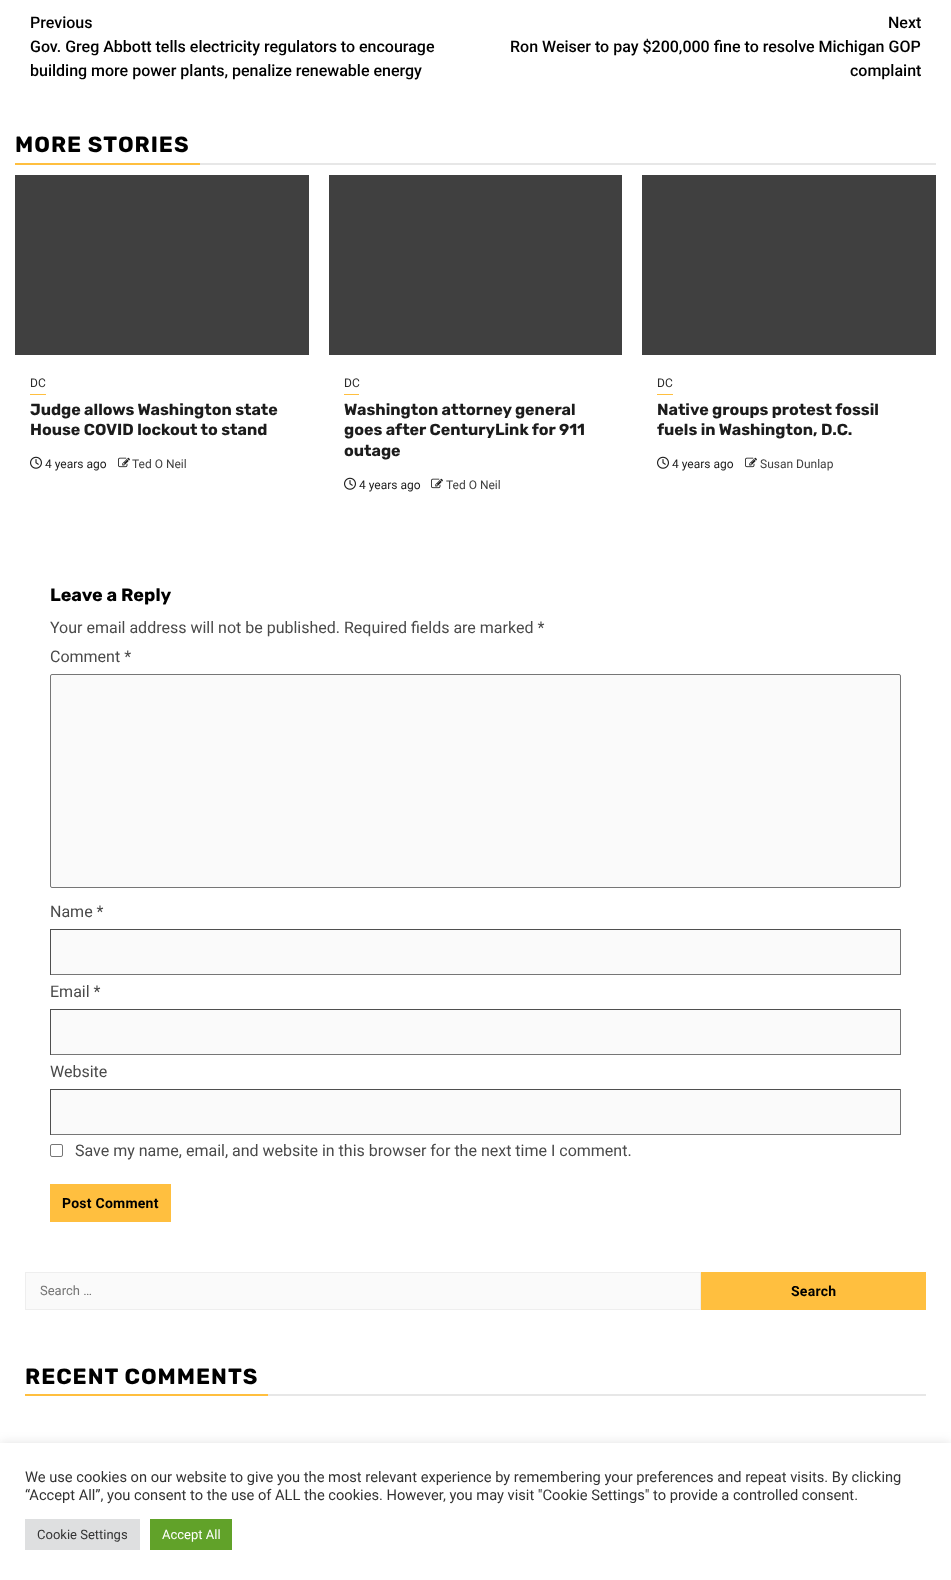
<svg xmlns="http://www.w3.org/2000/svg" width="951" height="1580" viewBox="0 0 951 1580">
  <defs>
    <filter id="blur1" x="-50%" y="-200%" width="200%" height="500%"><feGaussianBlur stdDeviation="5"/></filter>
  </defs>
  <rect width="100%" height="100%" fill="#ffffff"/>
  <text x="30" y="28" font-family="Roboto" font-size="16" font-weight="500" fill="#000000">Previous</text>
  <text x="30" y="52" font-family="Roboto" font-size="16" font-weight="500" fill="#000000">Gov. Greg Abbott tells electricity regulators to encourage</text>
  <text x="30" y="76" font-family="Roboto" font-size="16" font-weight="500" fill="#000000">building more power plants, penalize renewable energy</text>
  <text x="888" y="28" font-family="Roboto" font-size="16" font-weight="500" fill="#000000">Next</text>
  <text x="510" y="52" font-family="Roboto" font-size="16" font-weight="500" fill="#000000">Ron Weiser to pay $200,000 fine to resolve Michigan GOP</text>
  <text x="850" y="76" font-family="Roboto" font-size="16" font-weight="500" fill="#000000">complaint</text>
  <rect x="15" y="163" width="185" height="2" fill="#ffbf3f"/>
  <text x="15" y="152" font-family="Rubik" font-size="22" font-weight="bold" letter-spacing="1" fill="#000000">MORE STORIES</text>
  <rect x="200" y="163" width="736" height="2" fill="#e7e7e7"/>
  <rect x="15" y="175" width="294" height="180" fill="#404040"/>
  <rect x="30" y="394" width="16" height="1" fill="#ffbf3f"/>
  <text x="30" y="387" font-family="Roboto" font-size="12" fill="#2b2b2b">DC</text>
  <text x="30" y="415" font-family="Rubik" font-size="16" font-weight="bold" fill="#1c1c1c">Judge allows Washington state</text>
  <text x="30" y="435" font-family="Rubik" font-size="16" font-weight="bold" fill="#1c1c1c">House COVID lockout to stand</text>
  <image x="30" y="456" width="12" height="13" href="img1.png"/>
  <text x="45" y="468" font-family="Roboto" font-size="12" fill="#1c1c1c">4 years ago</text>
  <image x="118" y="457" width="12" height="11" href="img2.png"/>
  <text x="132" y="468" font-family="Roboto" font-size="12" fill="#404040">Ted O Neil</text>
  <rect x="329" y="175" width="293" height="180" fill="#404040"/>
  <rect x="344" y="394" width="15" height="1" fill="#ffbf3f"/>
  <text x="344" y="387" font-family="Roboto" font-size="12" fill="#2b2b2b">DC</text>
  <text x="344" y="415" font-family="Rubik" font-size="16" font-weight="bold" fill="#1c1c1c">Washington attorney general</text>
  <text x="344" y="435" font-family="Rubik" font-size="16" font-weight="bold" fill="#1c1c1c">goes after CenturyLink for 911</text>
  <text x="344" y="456" font-family="Rubik" font-size="16" font-weight="bold" fill="#1c1c1c">outage</text>
  <image x="344" y="477" width="12" height="13" href="img1.png"/>
  <text x="359" y="489" font-family="Roboto" font-size="12" fill="#1c1c1c">4 years ago</text>
  <image x="431" y="478" width="12" height="11" href="img2.png"/>
  <text x="446" y="489" font-family="Roboto" font-size="12" fill="#404040">Ted O Neil</text>
  <rect x="642" y="175" width="294" height="180" fill="#404040"/>
  <rect x="657" y="394" width="16" height="1" fill="#ffbf3f"/>
  <text x="657" y="387" font-family="Roboto" font-size="12" fill="#2b2b2b">DC</text>
  <text x="657" y="415" font-family="Rubik" font-size="16" font-weight="bold" fill="#1c1c1c">Native groups protest fossil</text>
  <text x="657" y="435" font-family="Rubik" font-size="16" font-weight="bold" fill="#1c1c1c">fuels in Washington, D.C.</text>
  <image x="657" y="456" width="12" height="13" href="img1.png"/>
  <text x="672" y="468" font-family="Roboto" font-size="12" fill="#1c1c1c">4 years ago</text>
  <image x="745" y="457" width="12" height="11" href="img2.png"/>
  <text x="760" y="468" font-family="Roboto" font-size="12" fill="#404040">Susan Dunlap</text>
  <text x="50" y="601" font-family="Rubik" font-size="18" font-weight="bold" fill="#000000">Leave a Reply</text>
  <text x="50" y="633" font-family="Roboto" font-size="16" fill="#4a4a4a">Your email address will not be published. Required fields are marked *</text>
  <text x="50" y="662" font-family="Roboto" font-size="16" fill="#4a4a4a">Comment *</text>
  <rect x="50.5" y="674.5" width="850" height="213" rx="1.5" fill="#fafafa" stroke="#767676"/>
  <text x="50" y="917" font-family="Roboto" font-size="16" fill="#4a4a4a">Name *</text>
  <rect x="51" y="930" width="849" height="44" fill="#fafafa"/>
  <rect x="50" y="929" width="851" height="1" fill="#4f4f4f"/>
  <rect x="900" y="929" width="1" height="46" fill="#767676"/>
  <rect x="50" y="974" width="851" height="1" fill="#767676"/>
  <rect x="50" y="929" width="1" height="46" fill="#4f4f4f"/>
  <text x="50" y="997" font-family="Roboto" font-size="16" fill="#4a4a4a">Email *</text>
  <rect x="51" y="1010" width="849" height="44" fill="#fafafa"/>
  <rect x="50" y="1009" width="851" height="1" fill="#4f4f4f"/>
  <rect x="900" y="1009" width="1" height="46" fill="#767676"/>
  <rect x="50" y="1054" width="851" height="1" fill="#767676"/>
  <rect x="50" y="1009" width="1" height="46" fill="#4f4f4f"/>
  <text x="50" y="1077" font-family="Roboto" font-size="16" fill="#4a4a4a">Website</text>
  <rect x="51" y="1090" width="849" height="44" fill="#fafafa"/>
  <rect x="50" y="1089" width="851" height="1" fill="#4f4f4f"/>
  <rect x="900" y="1089" width="1" height="46" fill="#767676"/>
  <rect x="50" y="1134" width="851" height="1" fill="#767676"/>
  <rect x="50" y="1089" width="1" height="46" fill="#4f4f4f"/>
  <rect x="50.5" y="1144.5" width="12" height="12" rx="1.5" fill="none" stroke="#767676"/>
  <text x="75" y="1156" font-family="Roboto" font-size="16" fill="#4a4a4a">Save my name, email, and website in this browser for the next time I comment.</text>
  <rect x="50" y="1184" width="121" height="38" fill="#ffbf3f"/>
  <text x="62" y="1208" font-family="Roboto" font-size="14" font-weight="bold" letter-spacing="0.25" fill="#000000">Post Comment</text>
  <rect x="25.5" y="1272.5" width="675" height="37" fill="#fafafa" stroke="#eeeeee"/>
  <text x="40" y="1295" font-family="Roboto" font-size="13" fill="#757575">Search …</text>
  <rect x="701" y="1272" width="225" height="38" fill="#ffbf3f"/>
  <text x="791" y="1296" font-family="Roboto" font-size="14" font-weight="bold" letter-spacing="0.25" fill="#000000">Search</text>
  <rect x="25" y="1394" width="243" height="2" fill="#ffbf3f"/>
  <text x="25" y="1384" font-family="Rubik" font-size="22" font-weight="bold" letter-spacing="1" fill="#000000">RECENT COMMENTS</text>
  <rect x="268" y="1394" width="658" height="2" fill="#e7e7e7"/>
  <rect x="0" y="1442" width="951" height="137" fill="#acabab" fill-opacity="0.3" filter="url(#blur1)"/>
  <rect x="0" y="1443" width="951" height="137" fill="#ffffff"/>
  <text x="25" y="1482" font-family="Roboto" font-size="14.67" fill="#333333">We use cookies on our website to give you the most relevant experience by remembering your preferences and repeat visits. By clicking</text>
  <text x="25" y="1500" font-family="Roboto" font-size="14.67" fill="#333333">“Accept All”, you consent to the use of ALL the cookies. However, you may visit "Cookie Settings" to provide a controlled consent.</text>
  <rect x="25" y="1519" width="115" height="31" fill="#dedfe0"/>
  <text x="37" y="1539" font-family="Roboto" font-size="13" fill="#333333">Cookie Settings</text>
  <rect x="150" y="1519" width="82" height="31" fill="#61a229"/>
  <text x="162" y="1539" font-family="Roboto" font-size="13" fill="#ffffff">Accept All</text>
</svg>
